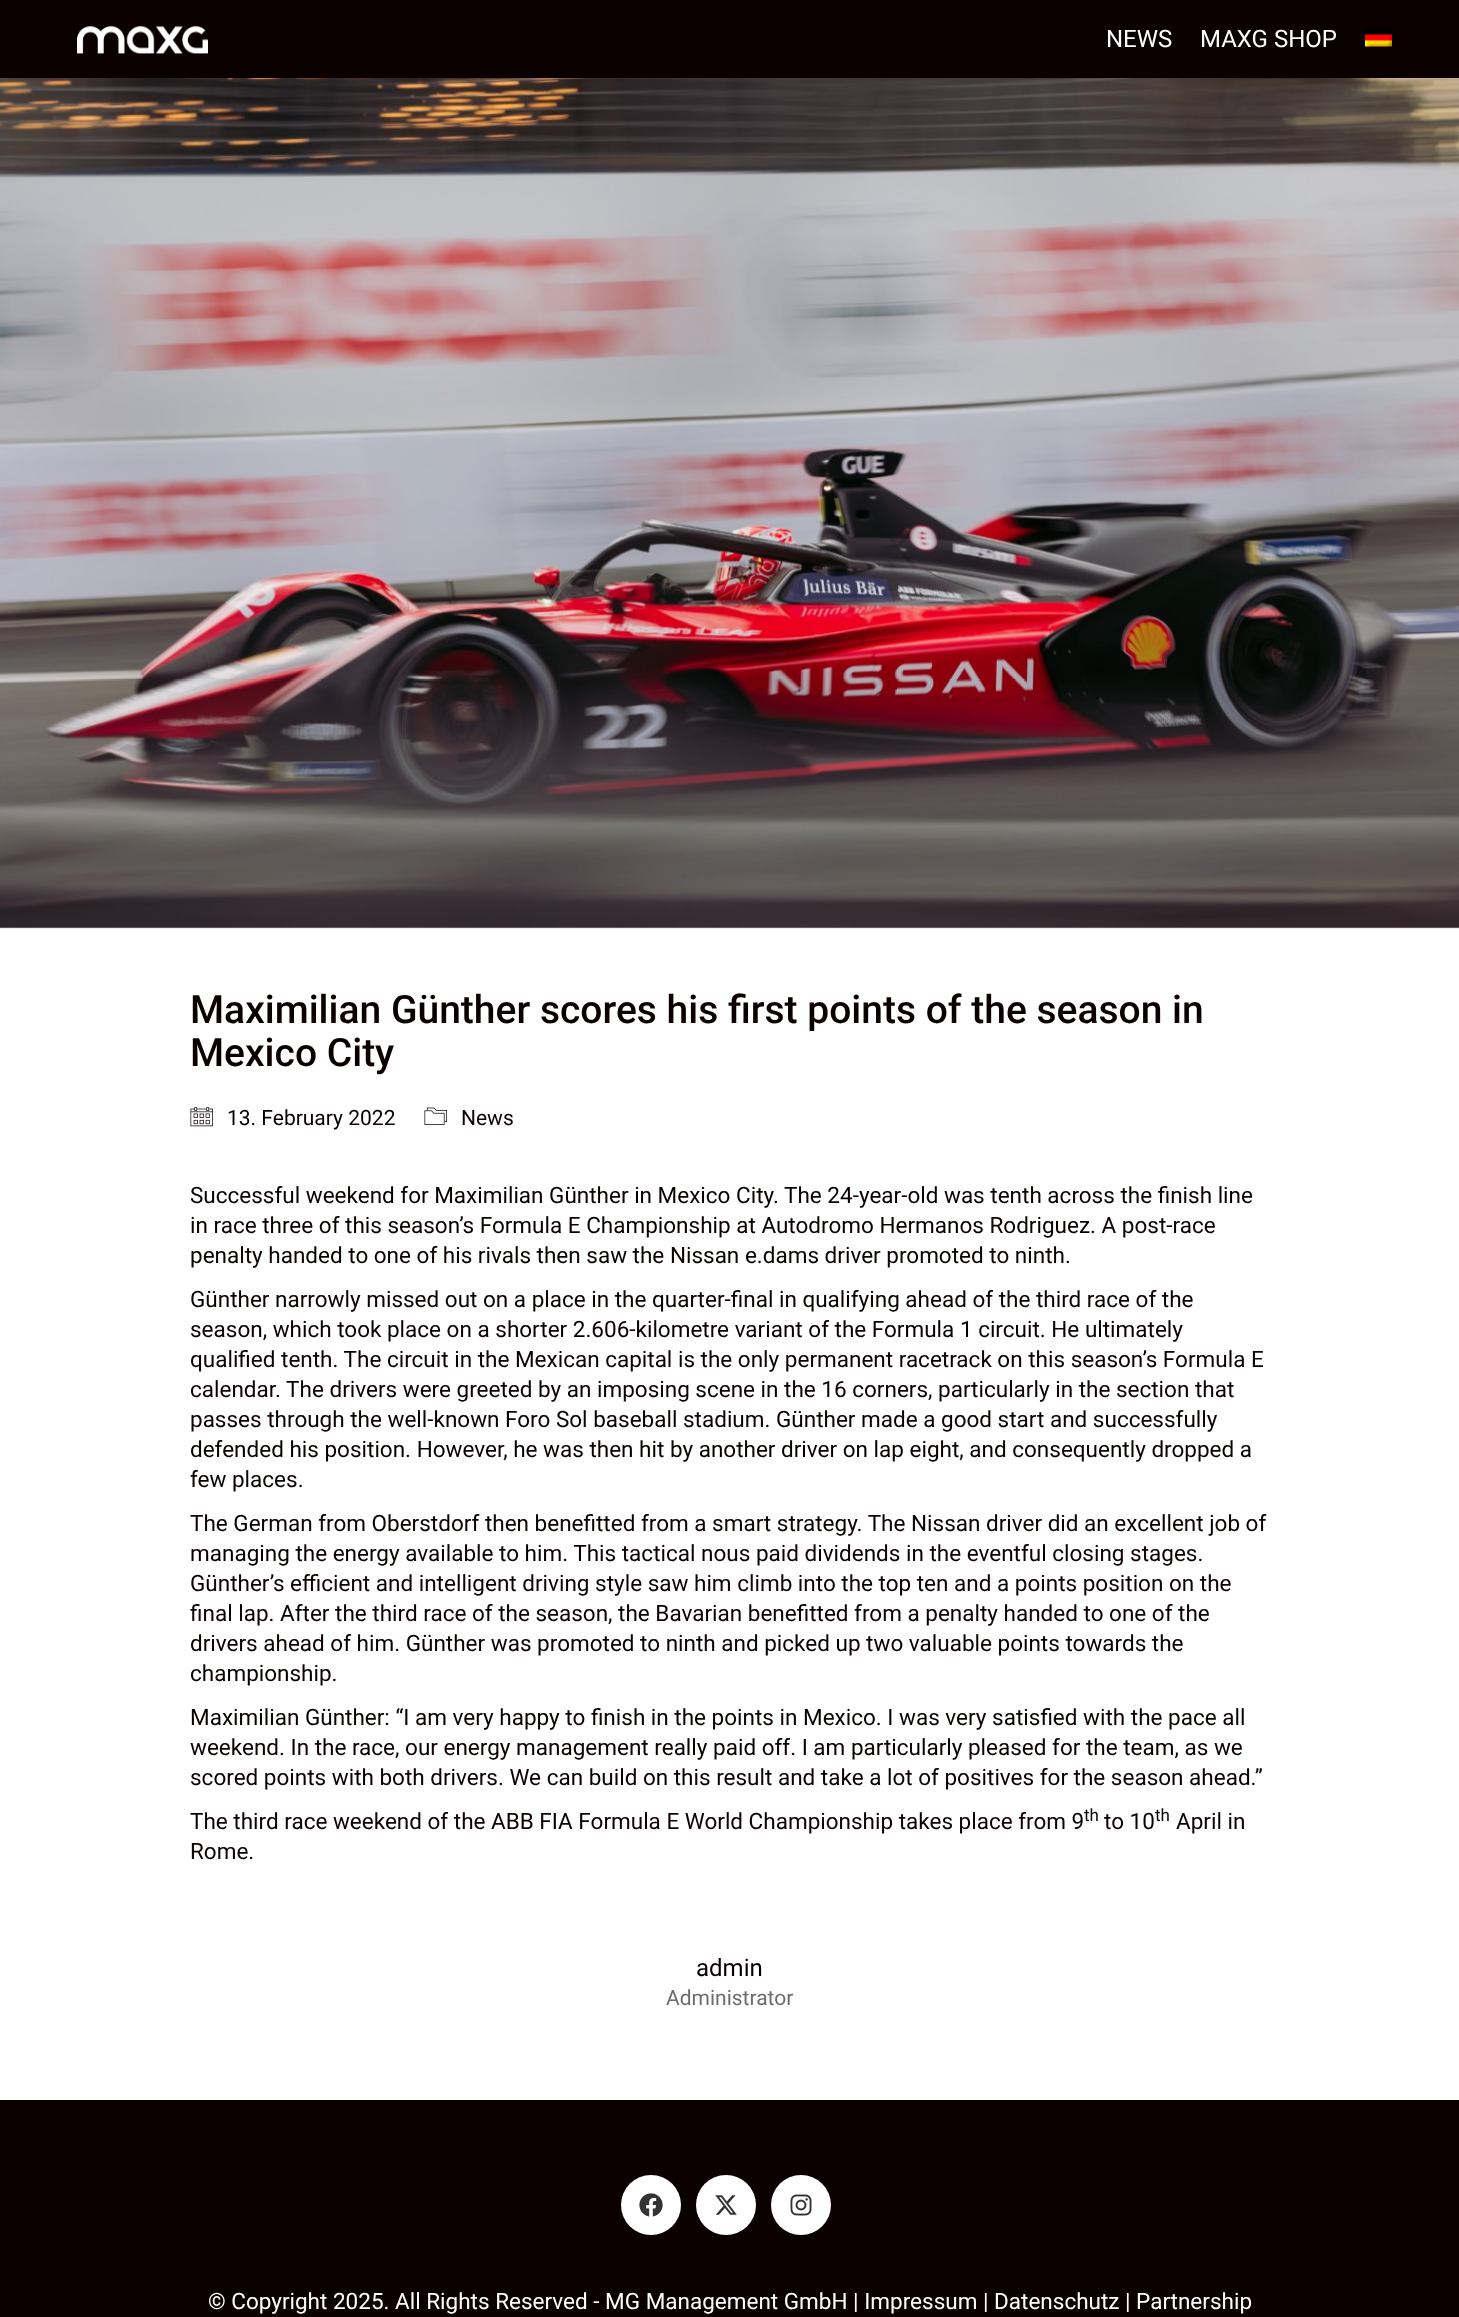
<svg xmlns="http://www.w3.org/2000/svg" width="1459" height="2317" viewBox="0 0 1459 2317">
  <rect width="100%" height="100%" fill="#ffffff"/>
  <rect x="0" y="0" width="1459" height="78" fill="#0a0000"/>
  <image x="77" y="26" width="131" height="28" href="img1.png"/>
  <text x="1106" y="47" font-family="Roboto" font-size="24" fill="#ffffff">NEWS</text>
  <text x="1200" y="47" font-family="Roboto" font-size="24" fill="#ffffff">MAXG SHOP</text>
  <image x="1365" y="28" width="27" height="19" href="img2.png"/>
  <rect x="0" y="927" width="1459" height="2" fill="#eeeeee"/>
  <image x="0" y="78" width="1459" height="850" href="img3.png"/>
  <text x="190" y="1023" font-family="Roboto" font-size="39" font-weight="500" fill="#0a0000">Maximilian Günther scores his first points of the season in</text>
  <text x="190" y="1066" font-family="Roboto" font-size="39" font-weight="500" fill="#0a0000">Mexico City</text>
  <image x="190" y="1107" width="23" height="20" href="img4.png"/>
  <text x="227" y="1125" font-family="Roboto" font-size="21" fill="#0a0000">13. February 2022</text>
  <image x="424" y="1107" width="23" height="18" href="img5.png"/>
  <text x="461" y="1125" font-family="Roboto" font-size="21" fill="#0a0000">News</text>
  <text x="190" y="1203" font-family="Roboto" font-size="22.5" fill="#0a0000">Successful weekend for Maximilian Günther in Mexico City. The 24-year-old was tenth across the finish line</text>
  <text x="190" y="1233" font-family="Roboto" font-size="22.5" fill="#0a0000">in race three of this season’s Formula E Championship at Autodromo Hermanos Rodriguez. A post-race</text>
  <text x="190" y="1263" font-family="Roboto" font-size="22.5" fill="#0a0000">penalty handed to one of his rivals then saw the Nissan e.dams driver promoted to ninth.</text>
  <text x="190" y="1307" font-family="Roboto" font-size="22.5" fill="#0a0000">Günther narrowly missed out on a place in the quarter-final in qualifying ahead of the third race of the</text>
  <text x="190" y="1337" font-family="Roboto" font-size="22.5" fill="#0a0000">season, which took place on a shorter 2.606-kilometre variant of the Formula 1 circuit. He ultimately</text>
  <text x="190" y="1367" font-family="Roboto" font-size="22.5" fill="#0a0000">qualified tenth. The circuit in the Mexican capital is the only permanent racetrack on this season’s Formula E</text>
  <text x="190" y="1397" font-family="Roboto" font-size="22.5" fill="#0a0000">calendar. The drivers were greeted by an imposing scene in the 16 corners, particularly in the section that</text>
  <text x="190" y="1427" font-family="Roboto" font-size="22.5" fill="#0a0000">passes through the well-known Foro Sol baseball stadium. Günther made a good start and successfully</text>
  <text x="190" y="1457" font-family="Roboto" font-size="22.5" fill="#0a0000">defended his position. However, he was then hit by another driver on lap eight, and consequently dropped a</text>
  <text x="190" y="1487" font-family="Roboto" font-size="22.5" fill="#0a0000">few places.</text>
  <text x="190" y="1531" font-family="Roboto" font-size="22.5" fill="#0a0000">The German from Oberstdorf then benefitted from a smart strategy. The Nissan driver did an excellent job of</text>
  <text x="190" y="1561" font-family="Roboto" font-size="22.5" fill="#0a0000">managing the energy available to him. This tactical nous paid dividends in the eventful closing stages.</text>
  <text x="190" y="1591" font-family="Roboto" font-size="22.5" fill="#0a0000">Günther’s efficient and intelligent driving style saw him climb into the top ten and a points position on the</text>
  <text x="190" y="1621" font-family="Roboto" font-size="22.5" fill="#0a0000">final lap. After the third race of the season, the Bavarian benefitted from a penalty handed to one of the</text>
  <text x="190" y="1651" font-family="Roboto" font-size="22.5" fill="#0a0000">drivers ahead of him. Günther was promoted to ninth and picked up two valuable points towards the</text>
  <text x="190" y="1681" font-family="Roboto" font-size="22.5" fill="#0a0000">championship.</text>
  <text x="190" y="1725" font-family="Roboto" font-size="22.5" fill="#0a0000">Maximilian Günther: “I am very happy to finish in the points in Mexico. I was very satisfied with the pace all</text>
  <text x="190" y="1755" font-family="Roboto" font-size="22.5" fill="#0a0000">weekend. In the race, our energy management really paid off. I am particularly pleased for the team, as we</text>
  <text x="190" y="1785" font-family="Roboto" font-size="22.5" fill="#0a0000">scored points with both drivers. We can build on this result and take a lot of positives for the season ahead.”</text>
  <text x="190" y="1829" font-family="Roboto" font-size="22.5" fill="#0a0000">The third race weekend of the ABB FIA Formula E World Championship takes place from 9</text>
  <text x="1084" y="1821" font-family="Roboto" font-size="17" fill="#0a0000">th</text>
  <text x="1104" y="1829" font-family="Roboto" font-size="22.5" fill="#0a0000">to 10</text>
  <text x="1155" y="1821" font-family="Roboto" font-size="17" fill="#0a0000">th</text>
  <text x="1176" y="1829" font-family="Roboto" font-size="22.5" fill="#0a0000">April in</text>
  <text x="190" y="1859" font-family="Roboto" font-size="22.5" fill="#0a0000">Rome.</text>
  <text x="696" y="1976" font-family="Roboto" font-size="24" fill="#0a0000">admin</text>
  <text x="666" y="2005" font-family="Roboto" font-size="21" fill="#6d6d6d">Administrator</text>
  <rect x="0" y="2100" width="1459" height="217" fill="#0a0000"/>
  <circle cx="651" cy="2205" r="30" fill="#ffffff"/>
  <image x="639" y="2193" width="24" height="24" href="img6.png"/>
  <circle cx="726" cy="2205" r="30" fill="#ffffff"/>
  <image x="715" y="2195" width="22" height="20" href="img7.png"/>
  <circle cx="801" cy="2205" r="30" fill="#ffffff"/>
  <image x="790" y="2194" width="22" height="22" href="img8.png"/>
  <text x="208" y="2309" font-family="Roboto" font-size="22.5" fill="#ffffff">© Copyright 2025. All Rights Reserved - MG Management GmbH | Impressum</text>
  <text x="983" y="2309" font-family="Roboto" font-size="22.5" fill="#ffffff">| Datenschutz</text>
  <text x="1125" y="2309" font-family="Roboto" font-size="22.5" fill="#ffffff">| Partnership</text>
</svg>
